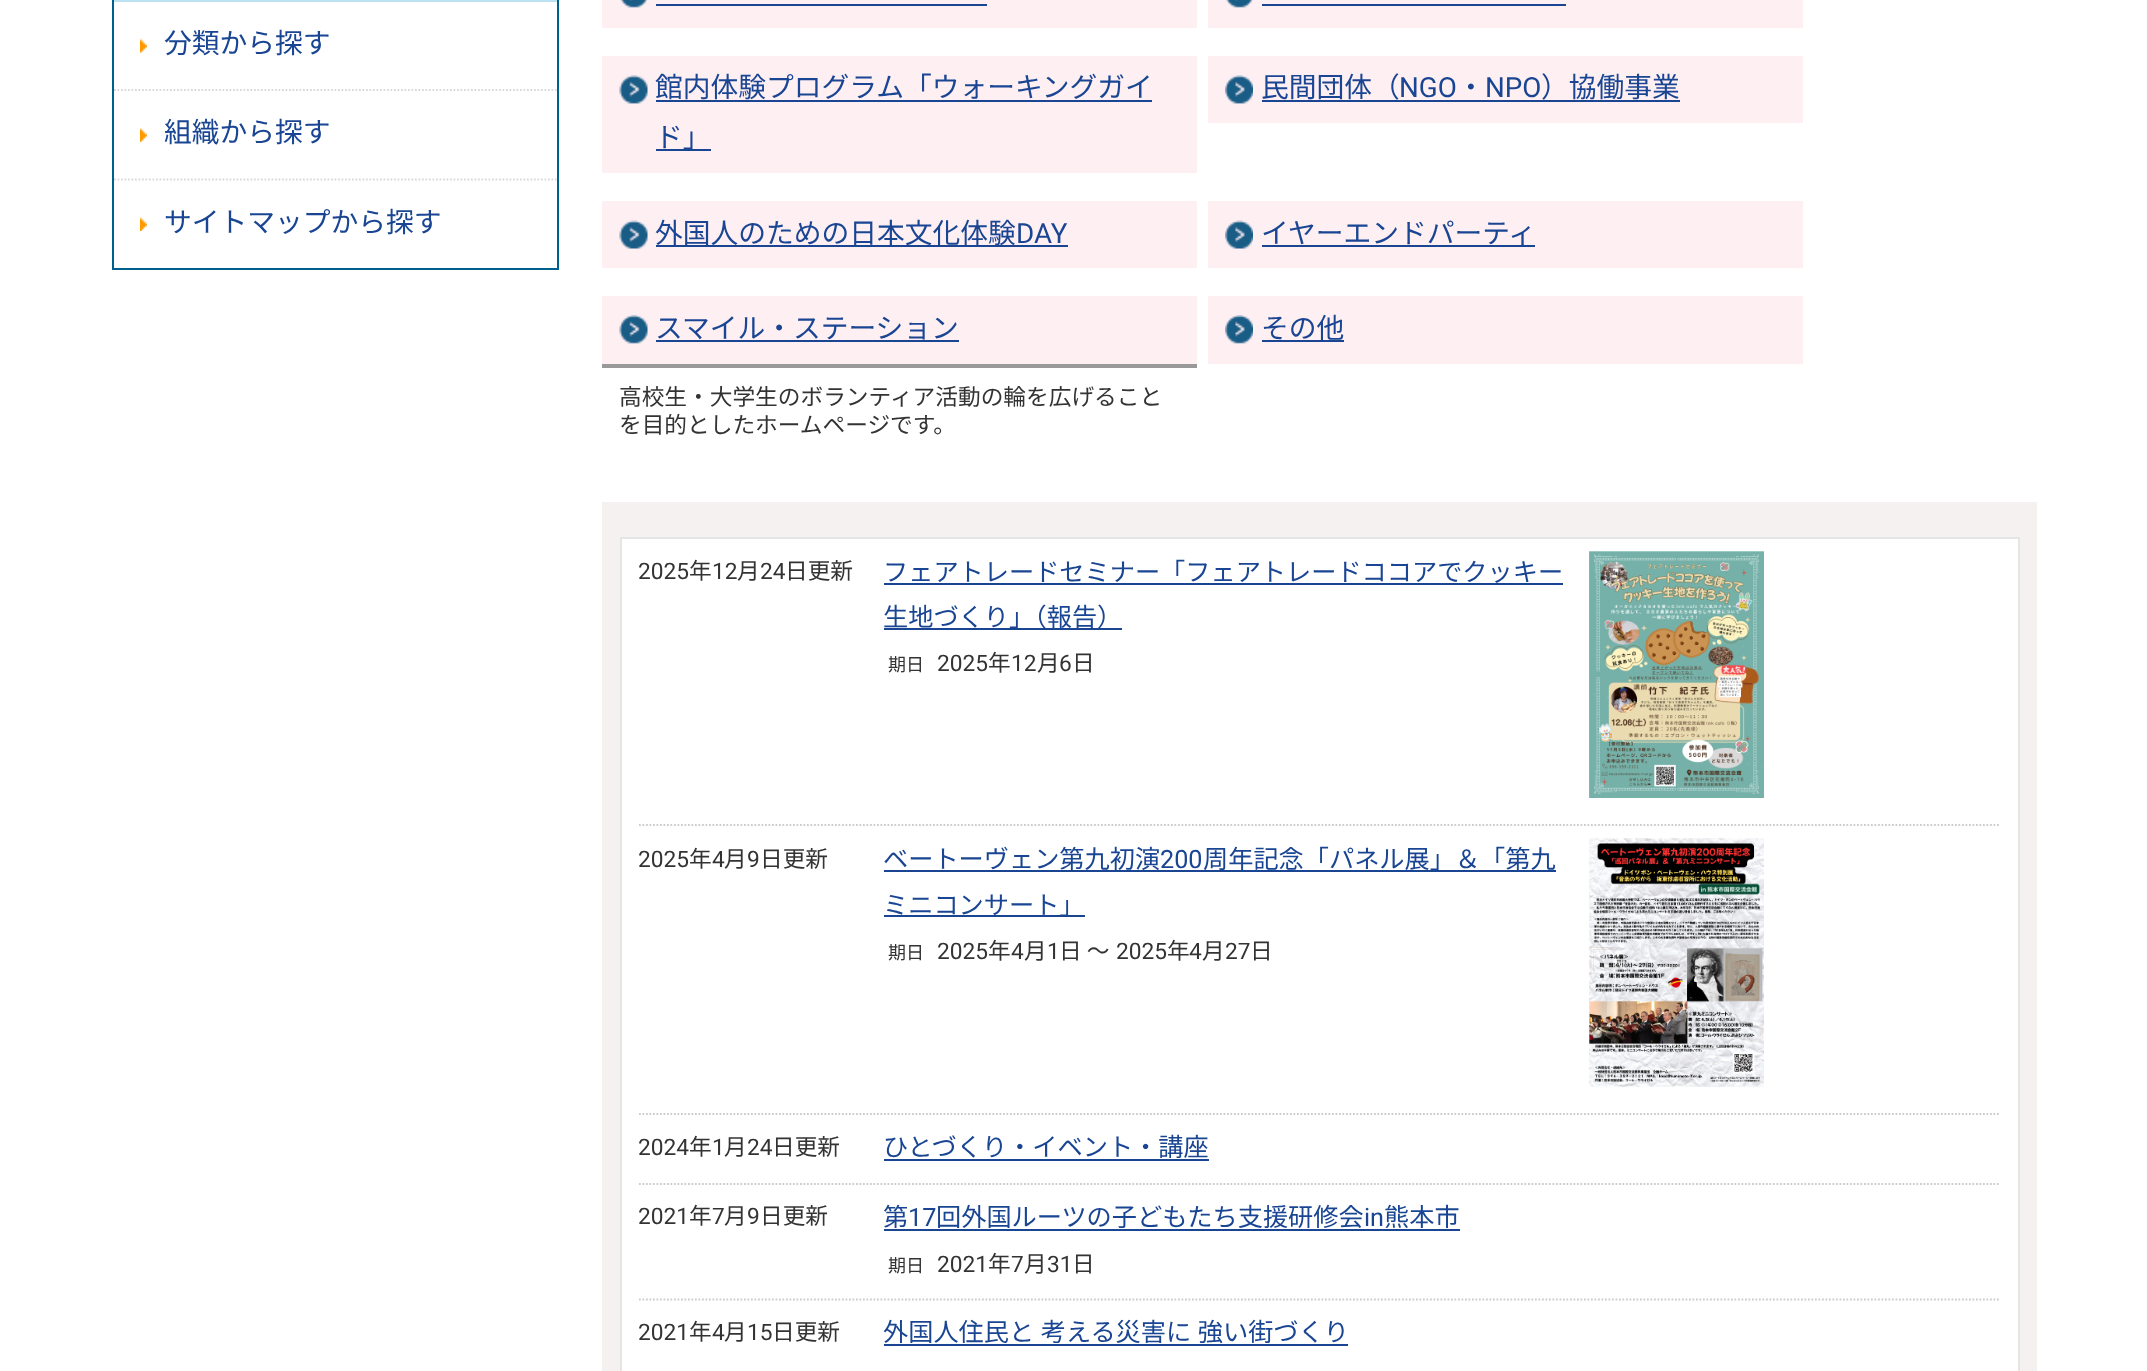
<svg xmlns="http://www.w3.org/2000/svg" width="2147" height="1371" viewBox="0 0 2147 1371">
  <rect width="100%" height="100%" fill="#ffffff"/>
  <rect x="112" y="0" width="446" height="2" fill="#bbe2f1"/>
  <rect x="557" y="0" width="2" height="270" fill="#00608d"/>
  <rect x="112" y="0" width="2" height="2" fill="#00608d"/>
  <rect x="112" y="268" width="446" height="2" fill="#00608d"/>
  <rect x="112" y="2" width="2" height="268" fill="#00608d"/>
  <image x="140" y="38" width="7" height="15" href="img1.png"/>
  <text x="164" y="53" font-family="Noto Sans CJK JP" font-size="27.75" fill="#194593">分類から探す</text>
  <path d="M114 90H556.5" fill="none" stroke="#d9d9d9" stroke-width="1.8" stroke-dasharray="1.75 1.75"/>
  <image x="140" y="127" width="7" height="15" href="img2.png"/>
  <text x="164" y="142" font-family="Noto Sans CJK JP" font-size="27.75" fill="#194593">組織から探す</text>
  <path d="M114 179.5H556.5" fill="none" stroke="#d9d9d9" stroke-width="1.8" stroke-dasharray="1.75 1.75"/>
  <image x="140" y="217" width="7" height="14" href="img3.png"/>
  <text x="164" y="232" font-family="Noto Sans CJK JP" font-size="27.75" fill="#194593">サイトマップから探す</text>
  <rect x="602" y="0" width="595" height="28" fill="#fdeff2"/>
  <image x="620" y="0" width="28" height="8" href="img4.png"/>
  <rect x="656" y="4" width="331" height="2" fill="#194593"/>
  <rect x="1208" y="0" width="595" height="28" fill="#fdeff2"/>
  <image x="1226" y="0" width="27" height="8" href="img5.png"/>
  <rect x="1262" y="4" width="304" height="2" fill="#194593"/>
  <rect x="602" y="56" width="595" height="117" fill="#fdeff2"/>
  <image x="619" y="75" width="29" height="29" href="img6.png"/>
  <text x="655" y="97" font-family="Noto Sans CJK JP" font-size="27.75" fill="#194593">館内体験プログラム「ウォーキングガイ</text>
  <rect x="656" y="100" width="496" height="2" fill="#194593"/>
  <rect x="656" y="149" width="55" height="2" fill="#194593"/>
  <text x="655" y="147" font-family="Noto Sans CJK JP" font-size="27.75" fill="#194593">ド」</text>
  <rect x="1208" y="56" width="595" height="67" fill="#fdeff2"/>
  <image x="1225" y="75" width="28" height="29" href="img7.png"/>
  <text x="1261" y="97" font-family="Noto Sans CJK JP" font-size="27.75" fill="#194593">民間団体（</text>
  <text x="1399" y="97" font-family="Roboto" font-size="27.75" fill="#194593">NGO</text>
  <rect x="1262" y="100" width="418" height="2" fill="#194593"/>
  <text x="1457" y="97" font-family="Noto Sans CJK JP" font-size="27.75" fill="#194593">・</text>
  <text x="1485" y="97" font-family="Roboto" font-size="27.75" fill="#194593">NPO</text>
  <text x="1541" y="97" font-family="Noto Sans CJK JP" font-size="27.75" fill="#194593">）協働事業</text>
  <rect x="602" y="201" width="595" height="67" fill="#fdeff2"/>
  <image x="619" y="220" width="29" height="29" href="img8.png"/>
  <rect x="656" y="245" width="412" height="2" fill="#194593"/>
  <text x="655" y="243" font-family="Noto Sans CJK JP" font-size="27.75" fill="#194593">外国人のための日本文化体験</text>
  <text x="1016" y="243" font-family="Roboto" font-size="27.75" fill="#194593">DAY</text>
  <rect x="1208" y="201" width="595" height="67" fill="#fdeff2"/>
  <image x="1225" y="220" width="28" height="29" href="img9.png"/>
  <rect x="1262" y="245" width="273" height="2" fill="#194593"/>
  <text x="1261" y="243" font-family="Noto Sans CJK JP" font-size="27.75" fill="#194593">イヤーエンドパーティ</text>
  <rect x="602" y="296" width="595" height="68" fill="#fdeff2"/>
  <image x="619" y="315" width="29" height="29" href="img10.png"/>
  <rect x="602" y="364" width="595" height="4" fill="#999999"/>
  <text x="655" y="338" font-family="Noto Sans CJK JP" font-size="27.75" fill="#194593">スマイル・ステーション</text>
  <rect x="656" y="340" width="303" height="2" fill="#194593"/>
  <text x="619" y="405" font-family="Noto Sans CJK JP" font-size="22.7" fill="#333333">高校生・大学生のボランティア活動の輪を広げること</text>
  <text x="619" y="433" font-family="Noto Sans CJK JP" font-size="22.7" fill="#333333">を目的としたホームページです。</text>
  <rect x="1208" y="296" width="595" height="68" fill="#fdeff2"/>
  <image x="1225" y="315" width="28" height="29" href="img11.png"/>
  <rect x="1262" y="340" width="82" height="2" fill="#194593"/>
  <text x="1261" y="338" font-family="Noto Sans CJK JP" font-size="27.75" fill="#194593">その他</text>
  <rect x="602" y="502" width="1435" height="869" fill="#f5f1f0"/>
  <rect x="621" y="538" width="1398" height="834" fill="#ffffff" stroke="#e5e5e5" stroke-width="2"/>
  <text x="638" y="579" font-family="Roboto" font-size="22.7" fill="#333333">2025</text>
  <text x="689" y="579" font-family="Noto Sans CJK JP" font-size="22.7" fill="#333333">年</text>
  <text x="712" y="579" font-family="Roboto" font-size="22.7" fill="#333333">12</text>
  <text x="737" y="579" font-family="Noto Sans CJK JP" font-size="22.7" fill="#333333">月</text>
  <text x="760" y="579" font-family="Roboto" font-size="22.7" fill="#333333">24</text>
  <text x="785" y="579" font-family="Noto Sans CJK JP" font-size="22.7" fill="#333333">日更新</text>
  <text x="883" y="581" font-family="Noto Sans CJK JP" font-size="25.2" fill="#194593">フェアトレードセミナー「フェアトレードココアでクッキー</text>
  <rect x="884" y="583" width="679" height="2" fill="#194593"/>
  <image x="1589" y="551" width="175" height="247" href="img12.png"/>
  <rect x="884" y="628" width="238" height="2" fill="#194593"/>
  <text x="883" y="626" font-family="Noto Sans CJK JP" font-size="25.2" fill="#194593">生地づくり」（報告）</text>
  <text x="888" y="671" font-family="Noto Sans CJK JP" font-size="18" fill="#333333">期日</text>
  <text x="937" y="671" font-family="Roboto" font-size="22.7" fill="#333333">2025</text>
  <text x="988" y="671" font-family="Noto Sans CJK JP" font-size="22.7" fill="#333333">年</text>
  <text x="1011" y="671" font-family="Roboto" font-size="22.7" fill="#333333">12</text>
  <text x="1037" y="671" font-family="Noto Sans CJK JP" font-size="22.7" fill="#333333">月</text>
  <text x="1059" y="671" font-family="Roboto" font-size="22.7" fill="#333333">6</text>
  <text x="1072" y="671" font-family="Noto Sans CJK JP" font-size="22.7" fill="#333333">日</text>
  <path d="M639 825H2000" fill="none" stroke="#cccccc" stroke-width="1.8" stroke-dasharray="1.75 1.75"/>
  <text x="638" y="867" font-family="Roboto" font-size="22.7" fill="#333333">2025</text>
  <text x="689" y="867" font-family="Noto Sans CJK JP" font-size="22.7" fill="#333333">年</text>
  <text x="712" y="867" font-family="Roboto" font-size="22.7" fill="#333333">4</text>
  <text x="724" y="867" font-family="Noto Sans CJK JP" font-size="22.7" fill="#333333">月</text>
  <text x="747" y="867" font-family="Roboto" font-size="22.7" fill="#333333">9</text>
  <text x="760" y="867" font-family="Noto Sans CJK JP" font-size="22.7" fill="#333333">日更新</text>
  <rect x="884" y="870" width="672" height="2" fill="#194593"/>
  <text x="883" y="868" font-family="Noto Sans CJK JP" font-size="25.2" fill="#194593">ベートーヴェン第九初演</text>
  <text x="1160" y="868" font-family="Roboto" font-size="25.2" fill="#194593">200</text>
  <text x="1203" y="868" font-family="Noto Sans CJK JP" font-size="25.2" fill="#194593">周年記念「パネル展」＆「第九</text>
  <image x="1589" y="838" width="175" height="249" href="img13.png"/>
  <rect x="884" y="915" width="201" height="2" fill="#194593"/>
  <text x="883" y="914" font-family="Noto Sans CJK JP" font-size="25.2" fill="#194593">ミニコンサート」</text>
  <text x="888" y="959" font-family="Noto Sans CJK JP" font-size="18" fill="#333333">期日</text>
  <text x="937" y="959" font-family="Roboto" font-size="22.7" fill="#333333">2025</text>
  <text x="988" y="959" font-family="Noto Sans CJK JP" font-size="22.7" fill="#333333">年</text>
  <text x="1011" y="959" font-family="Roboto" font-size="22.7" fill="#333333">4</text>
  <text x="1024" y="959" font-family="Noto Sans CJK JP" font-size="22.7" fill="#333333">月</text>
  <text x="1047" y="959" font-family="Roboto" font-size="22.7" fill="#333333">1</text>
  <text x="1059" y="959" font-family="Noto Sans CJK JP" font-size="22.7" fill="#333333">日 ～</text>
  <text x="1116" y="959" font-family="Roboto" font-size="22.7" fill="#333333">2025</text>
  <text x="1167" y="959" font-family="Noto Sans CJK JP" font-size="22.7" fill="#333333">年</text>
  <text x="1189" y="959" font-family="Roboto" font-size="22.7" fill="#333333">4</text>
  <text x="1202" y="959" font-family="Noto Sans CJK JP" font-size="22.7" fill="#333333">月</text>
  <text x="1225" y="959" font-family="Roboto" font-size="22.7" fill="#333333">27</text>
  <text x="1250" y="959" font-family="Noto Sans CJK JP" font-size="22.7" fill="#333333">日</text>
  <path d="M639 1114H2000" fill="none" stroke="#cccccc" stroke-width="1.8" stroke-dasharray="1.75 1.75"/>
  <text x="638" y="1155" font-family="Roboto" font-size="22.7" fill="#333333">2024</text>
  <text x="689" y="1155" font-family="Noto Sans CJK JP" font-size="22.7" fill="#333333">年</text>
  <text x="712" y="1155" font-family="Roboto" font-size="22.7" fill="#333333">1</text>
  <text x="724" y="1155" font-family="Noto Sans CJK JP" font-size="22.7" fill="#333333">月</text>
  <text x="747" y="1155" font-family="Roboto" font-size="22.7" fill="#333333">24</text>
  <text x="772" y="1155" font-family="Noto Sans CJK JP" font-size="22.7" fill="#333333">日更新</text>
  <text x="883" y="1156" font-family="Noto Sans CJK JP" font-size="25.2" fill="#194593">ひとづくり・イベント・講座</text>
  <rect x="884" y="1159" width="325" height="2" fill="#194593"/>
  <path d="M639 1184H2000" fill="none" stroke="#cccccc" stroke-width="1.8" stroke-dasharray="1.75 1.75"/>
  <text x="638" y="1224" font-family="Roboto" font-size="22.7" fill="#333333">2021</text>
  <text x="689" y="1224" font-family="Noto Sans CJK JP" font-size="22.7" fill="#333333">年</text>
  <text x="712" y="1224" font-family="Roboto" font-size="22.7" fill="#333333">7</text>
  <text x="724" y="1224" font-family="Noto Sans CJK JP" font-size="22.7" fill="#333333">月</text>
  <text x="747" y="1224" font-family="Roboto" font-size="22.7" fill="#333333">9</text>
  <text x="760" y="1224" font-family="Noto Sans CJK JP" font-size="22.7" fill="#333333">日更新</text>
  <text x="883" y="1226" font-family="Noto Sans CJK JP" font-size="25.2" fill="#194593">第</text>
  <text x="908" y="1226" font-family="Roboto" font-size="25.2" fill="#194593">17</text>
  <rect x="884" y="1229" width="576" height="2" fill="#194593"/>
  <text x="936" y="1226" font-family="Noto Sans CJK JP" font-size="25.2" fill="#194593">回外国ルーツの子どもたち支援研修会</text>
  <text x="1364" y="1226" font-family="Roboto" font-size="25.2" fill="#194593">in</text>
  <text x="1384" y="1226" font-family="Noto Sans CJK JP" font-size="25.2" fill="#194593">熊本市</text>
  <text x="888" y="1272" font-family="Noto Sans CJK JP" font-size="18" fill="#333333">期日</text>
  <text x="937" y="1272" font-family="Roboto" font-size="22.7" fill="#333333">2021</text>
  <text x="988" y="1272" font-family="Noto Sans CJK JP" font-size="22.7" fill="#333333">年</text>
  <text x="1011" y="1272" font-family="Roboto" font-size="22.7" fill="#333333">7</text>
  <text x="1024" y="1272" font-family="Noto Sans CJK JP" font-size="22.7" fill="#333333">月</text>
  <text x="1047" y="1272" font-family="Roboto" font-size="22.7" fill="#333333">31</text>
  <text x="1072" y="1272" font-family="Noto Sans CJK JP" font-size="22.7" fill="#333333">日</text>
  <path d="M639 1299.5H2000" fill="none" stroke="#cccccc" stroke-width="1.8" stroke-dasharray="1.75 1.75"/>
  <text x="638" y="1340" font-family="Roboto" font-size="22.7" fill="#333333">2021</text>
  <text x="689" y="1340" font-family="Noto Sans CJK JP" font-size="22.7" fill="#333333">年</text>
  <text x="712" y="1340" font-family="Roboto" font-size="22.7" fill="#333333">4</text>
  <text x="724" y="1340" font-family="Noto Sans CJK JP" font-size="22.7" fill="#333333">月</text>
  <text x="747" y="1340" font-family="Roboto" font-size="22.7" fill="#333333">15</text>
  <text x="772" y="1340" font-family="Noto Sans CJK JP" font-size="22.7" fill="#333333">日更新</text>
  <text x="883" y="1341" word-spacing="1" font-family="Noto Sans CJK JP" font-size="25.2" fill="#194593">外国人住民と 考える災害に 強い街づくり</text>
  <rect x="884" y="1344" width="464" height="2" fill="#194593"/>
</svg>
